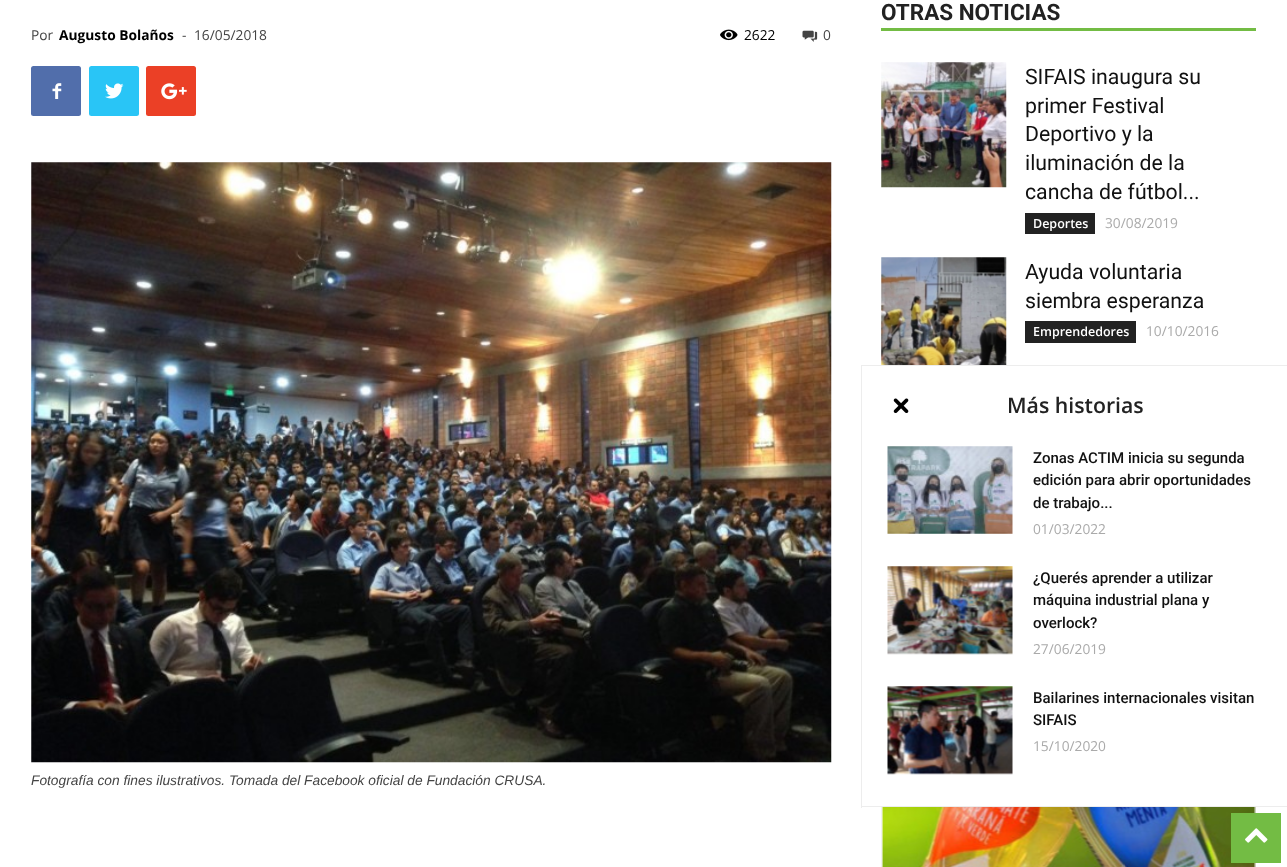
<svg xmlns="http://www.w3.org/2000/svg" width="1287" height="867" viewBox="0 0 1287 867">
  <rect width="100%" height="100%" fill="#ffffff"/>
  <text x="31" y="40" font-family="Open Sans" font-size="13.75" fill="#444444">Por</text>
  <text x="59" y="40" font-family="Open Sans" font-size="13.75" font-weight="bold" fill="#000000">Augusto Bolaños</text>
  <text x="182" y="40" font-family="Open Sans" font-size="13.75" fill="#444444">-</text>
  <text x="194" y="40" font-family="Open Sans" font-size="13.75" fill="#444444">16/05/2018</text>
  <image x="720" y="29" width="18" height="12" href="img1.png"/>
  <text x="744" y="40" font-family="Open Sans" font-size="13.75" fill="#000000">2622</text>
  <image x="802" y="30" width="16" height="12" href="img2.png"/>
  <text x="823" y="40" font-family="Open Sans" font-size="13.75" fill="#444444">0</text>
  <rect x="31" y="66" width="50" height="50" rx="2.5" fill="#516eab"/>
  <image x="52" y="83" width="10" height="16" href="img3.png"/>
  <rect x="89" y="66" width="50" height="50" rx="2.5" fill="#29c5f6"/>
  <image x="105" y="83" width="19" height="16" href="img4.png"/>
  <rect x="146" y="66" width="50" height="50" rx="2.5" fill="#eb4026"/>
  <image x="161" y="83" width="26" height="17" href="img5.png"/>
  <image x="31" y="162" width="801" height="601" href="img6.png"/>
  <text x="31" y="785" font-family="Liberation Sans" font-size="13.75" font-style="italic" fill="#444444">Fotografía con fines ilustrativos. Tomada del Facebook oficial de Fundación CRUSA.</text>
  <rect x="881" y="28" width="375" height="3" fill="#73bc44"/>
  <text x="881" y="20" font-family="Roboto" font-size="22.5" font-weight="bold" fill="#222222">OTRAS NOTICIAS</text>
  <image x="881" y="62" width="126" height="126" href="img7.png"/>
  <text x="1025" y="84" font-family="Roboto" font-size="21.25" fill="#111111">SIFAIS inaugura su</text>
  <text x="1025" y="113" font-family="Roboto" font-size="21.25" fill="#111111">primer Festival</text>
  <text x="1025" y="141" font-family="Roboto" font-size="21.25" fill="#111111">Deportivo y la</text>
  <text x="1025" y="170" font-family="Roboto" font-size="21.25" fill="#111111">iluminación de la</text>
  <text x="1025" y="199" font-family="Roboto" font-size="21.25" fill="#111111">cancha de fútbol...</text>
  <rect x="1025" y="213" width="70" height="21" fill="#222222"/>
  <text x="1033" y="228" font-family="Open Sans" font-size="12.5" font-weight="600" fill="#ffffff">Deportes</text>
  <text x="1105" y="228" font-family="Open Sans" font-size="13.75" fill="#aaaaaa">30/08/2019</text>
  <image x="881" y="257" width="126" height="108" href="img8.png"/>
  <text x="1025" y="279" font-family="Roboto" font-size="21.25" fill="#111111">Ayuda voluntaria</text>
  <text x="1025" y="308" font-family="Roboto" font-size="21.25" fill="#111111">siembra esperanza</text>
  <rect x="1025" y="321" width="111" height="22" fill="#222222"/>
  <text x="1033" y="336" font-family="Open Sans" font-size="12.5" font-weight="600" fill="#ffffff">Emprendedores</text>
  <text x="1146" y="336" font-family="Open Sans" font-size="13.75" fill="#aaaaaa">10/10/2016</text>
  <rect x="881.5" y="645.5" width="374" height="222" fill="none" stroke="#f1f1f1"/>
  <rect x="1254" y="807" width="1" height="60" fill="#f1f1f1"/>
  <image x="882" y="807" width="374" height="60" href="img9.png"/>
  <rect x="881" y="645" width="375" height="161" fill="#ffffff"/>
  <rect x="861" y="365" width="426" height="1" fill="#ededed"/>
  <rect x="861" y="806" width="426" height="1" fill="#ededed"/>
  <rect x="861" y="365" width="1" height="443" fill="#ededed"/>
  <image x="893" y="398" width="16" height="15" href="img10.png"/>
  <text x="1007" y="413" font-family="Open Sans" font-size="21.25" font-weight="600" fill="#222222">Más historias</text>
  <image x="887" y="446" width="126" height="88" href="img11.png"/>
  <text x="1033" y="463" font-family="Roboto" font-size="15" font-weight="500" fill="#111111">Zonas ACTIM inicia su segunda</text>
  <text x="1033" y="485" font-family="Roboto" font-size="15" font-weight="500" fill="#111111">edición para abrir oportunidades</text>
  <text x="1033" y="508" font-family="Roboto" font-size="15" font-weight="500" fill="#111111">de trabajo...</text>
  <text x="1033" y="534" font-family="Open Sans" font-size="13.75" fill="#aaaaaa">01/03/2022</text>
  <image x="887" y="566" width="126" height="89" href="img12.png"/>
  <text x="1033" y="583" font-family="Roboto" font-size="15" font-weight="500" fill="#111111">¿Querés aprender a utilizar</text>
  <text x="1033" y="605" font-family="Roboto" font-size="15" font-weight="500" fill="#111111">máquina industrial plana y</text>
  <text x="1033" y="628" font-family="Roboto" font-size="15" font-weight="500" fill="#111111">overlock?</text>
  <text x="1033" y="654" font-family="Open Sans" font-size="13.75" fill="#aaaaaa">27/06/2019</text>
  <image x="887" y="686" width="126" height="89" href="img13.png"/>
  <text x="1033" y="703" font-family="Roboto" font-size="15" font-weight="500" fill="#111111">Bailarines internacionales visitan</text>
  <text x="1033" y="725" font-family="Roboto" font-size="15" font-weight="500" fill="#111111">SIFAIS</text>
  <text x="1033" y="751" font-family="Open Sans" font-size="13.75" fill="#aaaaaa">15/10/2020</text>
  <rect x="1231" y="813" width="50" height="50" fill="#73bc44"/>
  <image x="1245" y="828" width="23" height="15" href="img14.png"/>
</svg>
